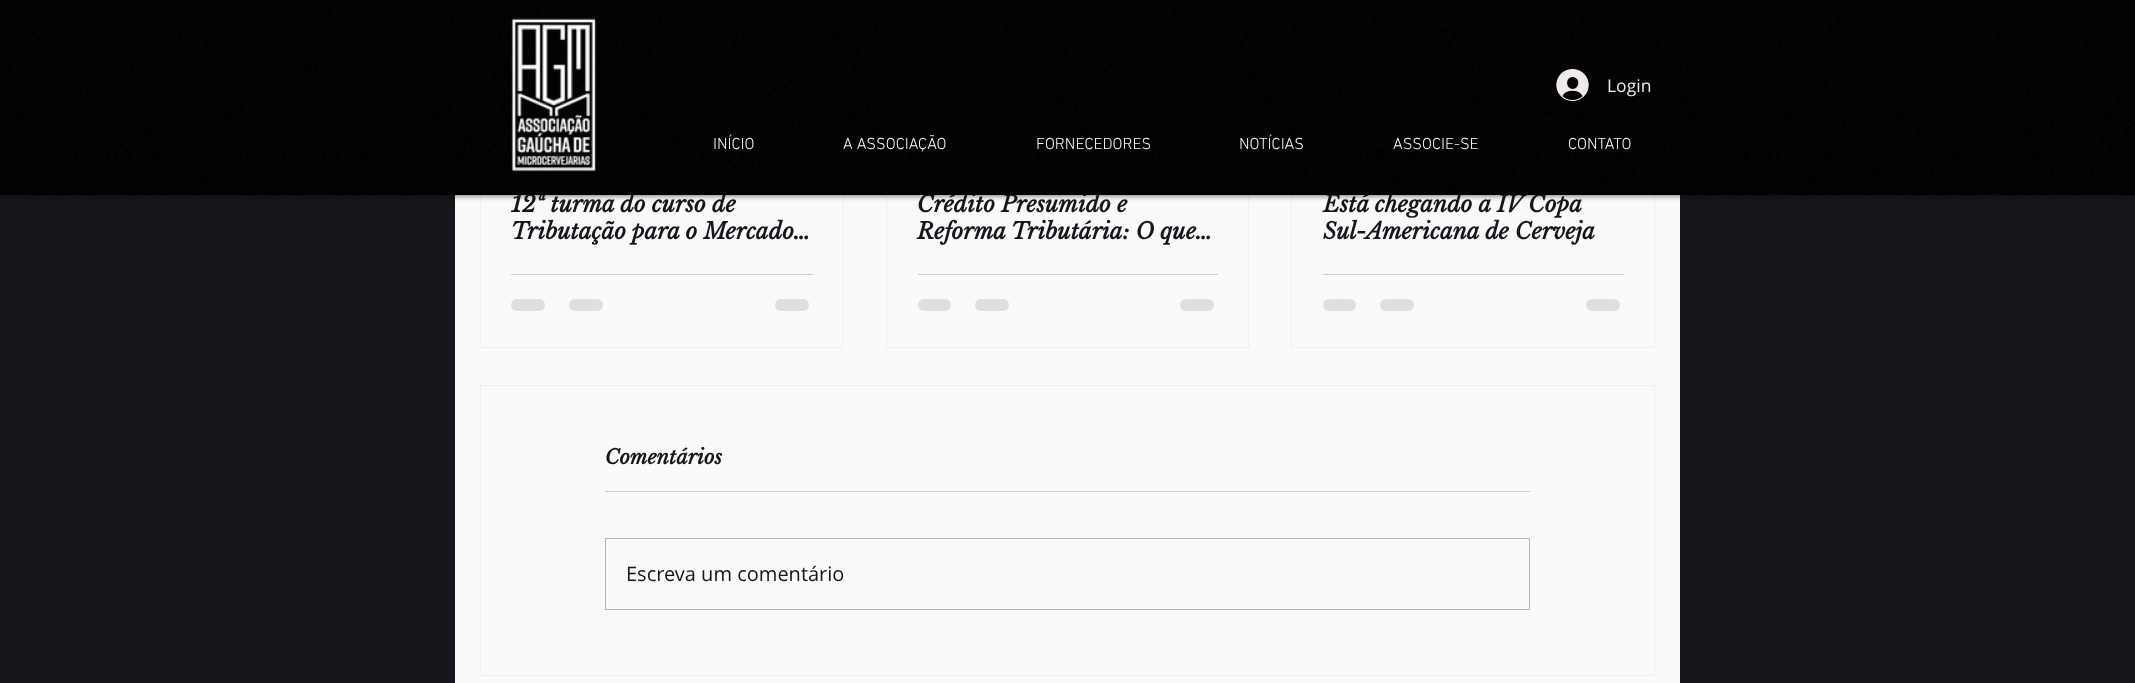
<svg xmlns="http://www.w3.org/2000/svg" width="2135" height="683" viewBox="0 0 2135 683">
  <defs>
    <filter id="blur1" x="-50%" y="-200%" width="200%" height="500%"><feGaussianBlur stdDeviation="3"/></filter>
  </defs>
  <rect width="100%" height="100%" fill="#14161b"/>
  <rect x="455" y="195" width="1225" height="488" fill="#fafafa"/>
  <rect x="480.5" y="-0.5" width="363" height="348" fill="none" stroke="#f3eded"/>
  <rect x="886.5" y="-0.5" width="362" height="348" fill="none" stroke="#f3eded"/>
  <rect x="1291.5" y="-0.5" width="363" height="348" fill="none" stroke="#f3eded"/>
  <rect x="0" y="0" width="2135" height="195" fill="#000000" fill-opacity="0.7" filter="url(#blur1)"/>
  <text x="511" y="212" font-family="Libre Baskerville" font-size="22.5" font-weight="bold" font-style="italic" fill="#14161b">12ª turma do curso de</text>
  <text x="917" y="212" font-family="Libre Baskerville" font-size="22.5" font-weight="bold" font-style="italic" fill="#14161b">Crédito Presumido e</text>
  <text x="1323" y="212" font-family="Libre Baskerville" font-size="22.5" font-weight="bold" font-style="italic" fill="#14161b">Está chegando a IV Copa</text>
  <rect x="0" y="0" width="2135" height="195" fill="#000000"/>
  <image x="0" y="0" width="2135" height="195" href="img1.png"/>
  <image x="511" y="18" width="86" height="154" href="img2.png"/>
  <image x="1556" y="69" width="33" height="32" href="img3.png"/>
  <text x="1607" y="92" font-family="Open Sans" font-size="17.5" fill="#f0e9e9">Login</text>
  <text x="713" y="149" font-family="'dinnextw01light'" font-size="16.25" font-weight="300" fill="#fafafa">INÍCIO</text>
  <text x="843" y="149" font-family="'dinnextw01light'" font-size="16.25" font-weight="300" fill="#fafafa">A ASSOCIAÇÃO</text>
  <text x="1036" y="149" font-family="'dinnextw01light'" font-size="16.25" font-weight="300" fill="#fafafa">FORNECEDORES</text>
  <text x="1239" y="149" font-family="'dinnextw01light'" font-size="16.25" font-weight="300" fill="#fafafa">NOTÍCIAS</text>
  <text x="1393" y="149" font-family="'dinnextw01light'" font-size="16.25" font-weight="300" fill="#fafafa">ASSOCIE-SE</text>
  <text x="1568" y="149" font-family="'dinnextw01light'" font-size="16.25" font-weight="300" fill="#fafafa">CONTATO</text>
  <text x="511" y="239" font-family="Libre Baskerville" font-size="22.5" font-weight="bold" font-style="italic" fill="#14161b">Tributação para o Mercado…</text>
  <rect x="511" y="274" width="302" height="1" fill="#cccccd"/>
  <rect x="511" y="299" width="34" height="12" rx="6" fill="#dedfdf"/>
  <rect x="569" y="299" width="34" height="12" rx="6" fill="#dedfdf"/>
  <rect x="775" y="299" width="34" height="12" rx="6" fill="#dedfdf"/>
  <text x="917" y="239" font-family="Libre Baskerville" font-size="22.5" font-weight="bold" font-style="italic" fill="#14161b">Reforma Tributária: O que…</text>
  <rect x="918" y="274" width="300" height="1" fill="#cccccd"/>
  <rect x="918" y="299" width="33" height="12" rx="6" fill="#dedfdf"/>
  <rect x="975" y="299" width="34" height="12" rx="6" fill="#dedfdf"/>
  <rect x="1180" y="299" width="34" height="12" rx="6" fill="#dedfdf"/>
  <text x="1323" y="239" font-family="Libre Baskerville" font-size="22.5" font-weight="bold" font-style="italic" fill="#14161b">Sul-Americana de Cerveja</text>
  <rect x="1323" y="274" width="301" height="1" fill="#cccccd"/>
  <rect x="1323" y="299" width="33" height="12" rx="6" fill="#dedfdf"/>
  <rect x="1380" y="299" width="34" height="12" rx="6" fill="#dedfdf"/>
  <rect x="1586" y="299" width="34" height="12" rx="6" fill="#dedfdf"/>
  <rect x="480.5" y="385.5" width="1174" height="290" fill="none" stroke="#f3eded"/>
  <text x="605" y="464" font-family="Libre Baskerville" font-size="20" font-weight="bold" font-style="italic" fill="#14161b">Comentários</text>
  <rect x="605" y="491" width="925" height="1" fill="#cccccd"/>
  <rect x="605.5" y="538.5" width="924" height="71" fill="none" stroke="#b5b6b7"/>
  <text x="626" y="581" font-family="Open Sans" font-size="20" fill="#14161b">Escreva um comentário</text>
</svg>
